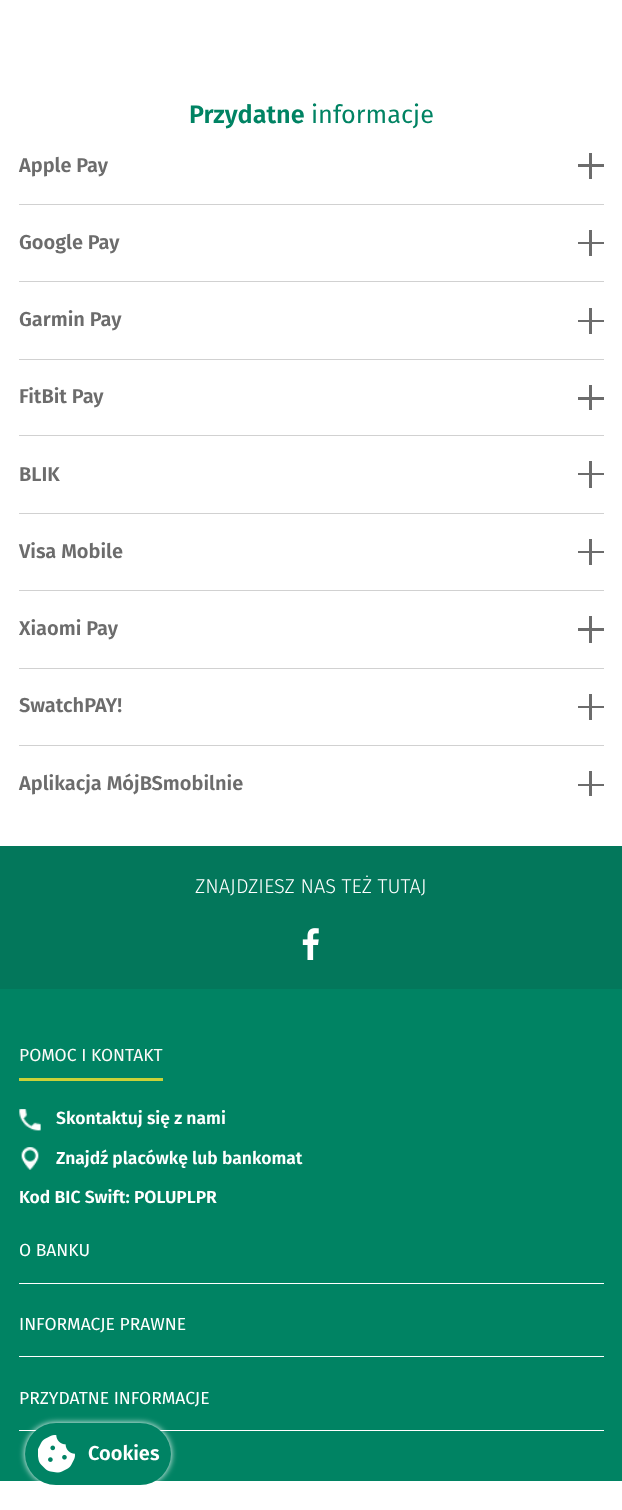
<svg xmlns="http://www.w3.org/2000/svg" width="622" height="1510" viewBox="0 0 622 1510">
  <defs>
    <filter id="blur1" x="-50%" y="-200%" width="200%" height="500%"><feGaussianBlur stdDeviation="3"/></filter>
  </defs>
  <rect width="100%" height="100%" fill="#ffffff"/>
  <text x="189" y="123" font-family="Fira Sans" font-size="25.25" font-weight="600" fill="#008363">Przydatne</text>
  <text x="311" y="123" font-family="Fira Sans" font-size="25.25" fill="#008363">informacje</text>
  <text x="19" y="172" font-family="Fira Sans" font-size="20" font-weight="600" fill="#6c6c6c">Apple Pay</text>
  <rect x="578" y="164" width="26" height="3" fill="#6c6c6c"/>
  <rect x="589" y="153" width="3" height="26" fill="#6c6c6c"/>
  <rect x="19" y="204" width="585" height="1" fill="#d1d1d1"/>
  <text x="19" y="249" font-family="Fira Sans" font-size="20" font-weight="600" fill="#6c6c6c">Google Pay</text>
  <rect x="578" y="242" width="26" height="2" fill="#6c6c6c"/>
  <rect x="589" y="230" width="3" height="26" fill="#6c6c6c"/>
  <rect x="19" y="281" width="585" height="1" fill="#d1d1d1"/>
  <text x="19" y="326" font-family="Fira Sans" font-size="20" font-weight="600" fill="#6c6c6c">Garmin Pay</text>
  <rect x="578" y="320" width="26" height="2" fill="#6c6c6c"/>
  <rect x="589" y="308" width="3" height="26" fill="#6c6c6c"/>
  <rect x="19" y="359" width="585" height="1" fill="#d1d1d1"/>
  <text x="19" y="403" font-family="Fira Sans" font-size="20" font-weight="600" fill="#6c6c6c">FitBit Pay</text>
  <rect x="578" y="397" width="26" height="3" fill="#6c6c6c"/>
  <rect x="589" y="385" width="3" height="25" fill="#6c6c6c"/>
  <rect x="19" y="435" width="585" height="1" fill="#d1d1d1"/>
  <text x="19" y="481" font-family="Fira Sans" font-size="20" font-weight="600" fill="#6c6c6c">BLIK</text>
  <rect x="578" y="473" width="26" height="2" fill="#6c6c6c"/>
  <rect x="589" y="461" width="3" height="27" fill="#6c6c6c"/>
  <rect x="19" y="513" width="585" height="1" fill="#d1d1d1"/>
  <text x="19" y="558" font-family="Fira Sans" font-size="20" font-weight="600" fill="#6c6c6c">Visa Mobile</text>
  <rect x="578" y="551" width="26" height="2" fill="#6c6c6c"/>
  <rect x="589" y="539" width="3" height="26" fill="#6c6c6c"/>
  <rect x="19" y="590" width="585" height="1" fill="#d1d1d1"/>
  <text x="19" y="635" font-family="Fira Sans" font-size="20" font-weight="600" fill="#6c6c6c">Xiaomi Pay</text>
  <rect x="578" y="628" width="26" height="3" fill="#6c6c6c"/>
  <rect x="589" y="616" width="3" height="27" fill="#6c6c6c"/>
  <rect x="19" y="668" width="585" height="1" fill="#d1d1d1"/>
  <text x="19" y="712" font-family="Fira Sans" font-size="20" font-weight="600" fill="#6c6c6c">SwatchPAY!</text>
  <rect x="578" y="706" width="26" height="2" fill="#6c6c6c"/>
  <rect x="589" y="694" width="3" height="26" fill="#6c6c6c"/>
  <rect x="19" y="745" width="585" height="1" fill="#d1d1d1"/>
  <text x="19" y="790" font-family="Fira Sans" font-size="20" font-weight="600" fill="#6c6c6c">Aplikacja MójBSmobilnie</text>
  <rect x="578" y="784" width="26" height="2" fill="#6c6c6c"/>
  <rect x="589" y="771" width="3" height="25" fill="#6c6c6c"/>
  <rect x="0" y="846" width="622" height="143" fill="#03775b"/>
  <text x="195" y="893" font-family="Fira Sans" font-size="20" font-weight="300" fill="#ffffff">ZNAJDZIESZ NAS TEŻ TUTAJ</text>
  <image x="302" y="928" width="17" height="32" href="img1.png"/>
  <rect x="0" y="989" width="622" height="492" fill="#008363"/>
  <text x="19" y="1061" font-family="Fira Sans" font-size="17.5" fill="#fcfaf8">POMOC I KONTAKT</text>
  <rect x="19" y="1078" width="144" height="3" fill="#cad238"/>
  <image x="19" y="1109" width="22" height="22" href="img2.png"/>
  <text x="56" y="1124" font-family="Fira Sans" font-size="17.5" font-weight="600" fill="#ffffff">Skontaktuj się z nami</text>
  <image x="21" y="1147" width="18" height="23" href="img3.png"/>
  <text x="56" y="1164" font-family="Fira Sans" font-size="17.5" font-weight="600" fill="#ffffff">Znajdź placówkę lub bankomat</text>
  <text x="19" y="1203" font-family="Fira Sans" font-size="17.5" font-weight="600" fill="#ffffff">Kod BIC Swift: POLUPLPR</text>
  <text x="19" y="1256" font-family="Fira Sans" font-size="17.5" fill="#ffffff">O BANKU</text>
  <rect x="19" y="1283" width="585" height="1" fill="#ffffff"/>
  <text x="19" y="1330" font-family="Fira Sans" font-size="17.5" fill="#ffffff">INFORMACJE PRAWNE</text>
  <rect x="19" y="1356" width="585" height="1" fill="#ffffff"/>
  <text x="19" y="1404" font-family="Fira Sans" font-size="17.5" fill="#ffffff">PRZYDATNE INFORMACJE</text>
  <rect x="19" y="1430" width="585" height="1" fill="#ffffff"/>
  <rect x="25" y="1423" width="146" height="62" rx="31" fill="#ffffff" filter="url(#blur1)"/>
  <rect x="25" y="1423" width="146" height="62" rx="31" fill="#008364"/>
  <image x="38" y="1435" width="37" height="38" href="img4.png"/>
  <text x="88" y="1460" font-family="Fira Sans" font-size="20" font-weight="600" fill="#ffffff">Cookies</text>
</svg>
